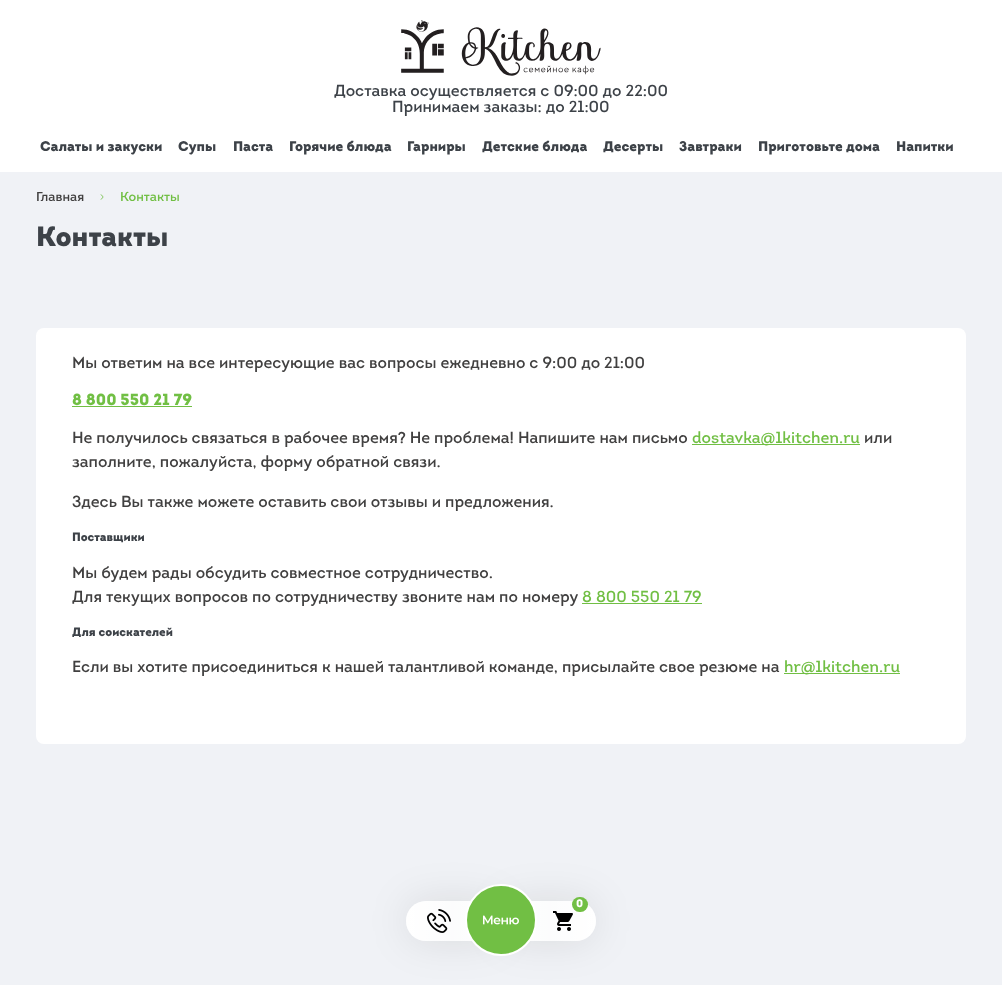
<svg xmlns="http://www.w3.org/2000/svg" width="1002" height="985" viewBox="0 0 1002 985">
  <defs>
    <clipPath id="clip1"><path d="M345 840H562V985H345ZM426 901H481C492 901 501 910 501 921C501 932 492 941 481 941H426C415 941 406 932 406 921C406 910 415 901 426 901Z" clip-rule="evenodd"/></clipPath>
    <filter id="blur1" x="-50%" y="-200%" width="200%" height="500%"><feGaussianBlur stdDeviation="20"/></filter>
    <linearGradient id="g1" gradientUnits="userSpaceOnUse" x1="406" y1="921" x2="501" y2="921"><stop offset="0" stop-color="#ffffff"/><stop offset="0.49" stop-color="#ffffff" stop-opacity="0.8"/><stop offset="1" stop-color="#ffffff"/></linearGradient>
    <clipPath id="clip2"><path d="M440 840H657V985H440ZM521 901H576C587 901 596 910 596 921C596 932 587 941 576 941H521C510 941 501 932 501 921C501 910 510 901 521 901Z" clip-rule="evenodd"/></clipPath>
    <linearGradient id="g2" gradientUnits="userSpaceOnUse" x1="596" y1="921" x2="501" y2="921"><stop offset="0" stop-color="#ffffff"/><stop offset="0.49" stop-color="#ffffff" stop-opacity="0.8"/><stop offset="1" stop-color="#ffffff"/></linearGradient>
  </defs>
  <rect width="100%" height="100%" fill="#f0f2f6"/>
  <rect x="0" y="0" width="1002" height="172" fill="#ffffff"/>
  <image x="401" y="20" width="200" height="56" href="img1.png"/>
  <text x="334" y="96" font-family="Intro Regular" font-size="16" fill="#3d4248">Доставка осуществляется с 09:00 до 22:00</text>
  <text x="392" y="112" font-family="Intro Regular" font-size="16" fill="#3d4248">Принимаем заказы: до 21:00</text>
  <text x="40" y="151" font-family="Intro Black" font-size="14" font-weight="900" fill="#3d4248">Салаты и закуски</text>
  <text x="178" y="151" font-family="Intro Black" font-size="14" font-weight="900" fill="#3d4248">Супы</text>
  <text x="233" y="151" font-family="Intro Black" font-size="14" font-weight="900" fill="#3d4248">Паста</text>
  <text x="289" y="151" font-family="Intro Black" font-size="14" font-weight="900" fill="#3d4248">Горячие блюда</text>
  <text x="407" y="151" font-family="Intro Black" font-size="14" font-weight="900" fill="#3d4248">Гарниры</text>
  <text x="482" y="151" font-family="Intro Black" font-size="14" font-weight="900" fill="#3d4248">Детские блюда</text>
  <text x="603" y="151" font-family="Intro Black" font-size="14" font-weight="900" fill="#3d4248">Десерты</text>
  <text x="679" y="151" font-family="Intro Black" font-size="14" font-weight="900" fill="#3d4248">Завтраки</text>
  <text x="758" y="151" font-family="Intro Black" font-size="14" font-weight="900" fill="#3d4248">Приготовьте дома</text>
  <text x="896" y="151" font-family="Intro Black" font-size="14" font-weight="900" fill="#3d4248">Напитки</text>
  <text x="36" y="201" font-family="Intro Regular" font-size="13" fill="#414040">Главная</text>
  <path d="M101 199.5C103.5 196.5 103.5 197.5 101 194.5" fill="none" stroke="#71bf44"/>
  <text x="120" y="201" font-family="Intro Regular" font-size="13" fill="#71bf44">Контакты</text>
  <text x="36" y="246" font-family="Intro Black" font-size="28" font-weight="900" fill="#3d4248">Контакты</text>
  <rect x="36" y="328" width="930" height="416" rx="8" fill="#ffffff"/>
  <text x="72" y="368" font-family="Intro Regular" font-size="16" fill="#414040">Мы ответим на все интересующие вас вопросы ежедневно с 9:00 до 21:00</text>
  <text x="72" y="405" font-family="Intro Black" font-size="16" font-weight="900" fill="#71bf44">8 800 550 21 79</text>
  <rect x="72" y="406" width="120" height="1" fill="#71bf44"/>
  <text x="72" y="443" font-family="Intro Regular" font-size="16" fill="#414040">Не получилось связаться в рабочее время? Не проблема! Напишите нам письмо</text>
  <rect x="692" y="444" width="168" height="1" fill="#71bf44"/>
  <text x="692" y="443" font-family="Intro Regular" font-size="16" fill="#71bf44">dostavka@1kitchen.ru</text>
  <text x="864" y="443" font-family="Intro Regular" font-size="16" fill="#414040">или</text>
  <text x="72" y="467" font-family="Intro Regular" font-size="16" fill="#414040">заполните, пожалуйста, форму обратной связи.</text>
  <text x="72" y="507" font-family="Intro Regular" font-size="16" fill="#414040">Здесь Вы также можете оставить свои отзывы и предложения.</text>
  <text x="72" y="541" font-family="Intro Black" font-size="12" font-weight="900" fill="#3d4248">Поставщики</text>
  <text x="72" y="578" font-family="Intro Regular" font-size="16" fill="#414040">Мы будем рады обсудить совместное сотрудничество.</text>
  <text x="72" y="602" font-family="Intro Regular" font-size="16" fill="#414040">Для текущих вопросов по сотрудничеству звоните нам по номеру</text>
  <text x="582" y="602" font-family="Intro Regular" font-size="16" fill="#71bf44">8 800 550 21 79</text>
  <rect x="582" y="603" width="120" height="1" fill="#71bf44"/>
  <text x="72" y="636" font-family="Intro Black" font-size="12" font-weight="900" fill="#3d4248">Для соискателей</text>
  <text x="72" y="672" font-family="Intro Regular" font-size="16" fill="#414040">Если вы хотите присоединиться к нашей талантливой команде, присылайте свое резюме на</text>
  <rect x="784" y="673" width="116" height="1" fill="#71bf44"/>
  <text x="784" y="672" font-family="Intro Regular" font-size="16" fill="#71bf44">hr@1kitchen.ru</text>
  <g clip-path="url(#clip1)">
    <rect x="406" y="901" width="95" height="40" rx="20" fill="#000000" fill-opacity="0.1" filter="url(#blur1)"/>
  </g>
  <rect x="406" y="901" width="95" height="40" rx="20" fill="url(#g1)"/>
  <image x="427" y="909" width="24" height="24" href="img2.png"/>
  <g clip-path="url(#clip2)">
    <rect x="501" y="901" width="95" height="40" rx="20" fill="#000000" fill-opacity="0.1" filter="url(#blur1)"/>
  </g>
  <rect x="501" y="901" width="95" height="40" rx="20" fill="url(#g2)"/>
  <circle cx="501" cy="920" r="35" fill="#71bf44" stroke="#ffffff" stroke-width="2"/>
  <image x="483" y="915" width="36" height="10" href="img3.png"/>
  <image x="553" y="911" width="20" height="20" href="img4.png"/>
  <rect x="572" y="897" width="16" height="15" rx="7.5" fill="#71bf44"/>
  <text x="576" y="907" font-family="Intro Black" font-size="11" font-weight="900" fill="#ffffff">0</text>
</svg>
